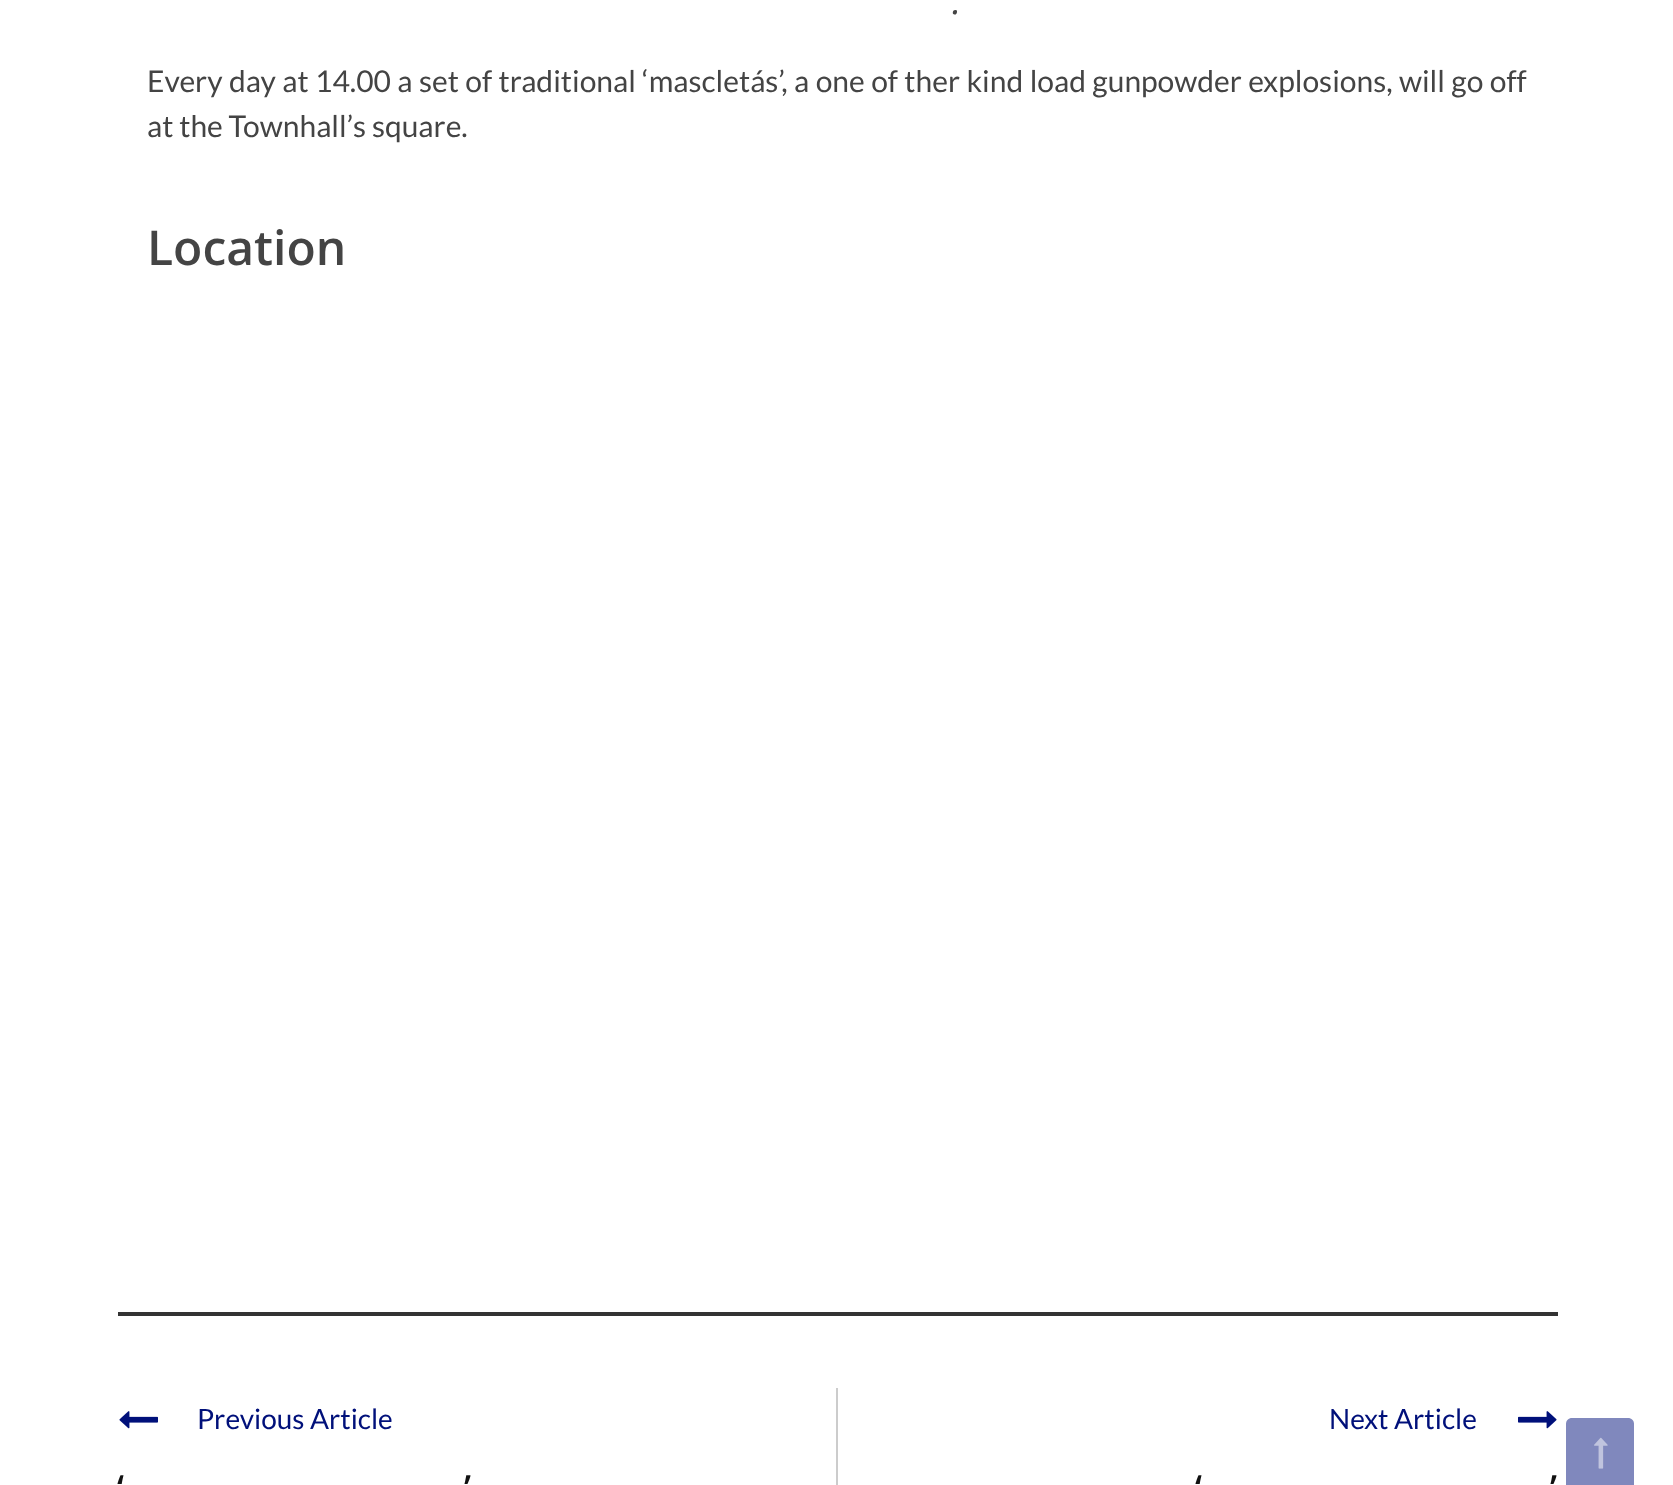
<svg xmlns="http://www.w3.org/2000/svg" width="1673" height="1485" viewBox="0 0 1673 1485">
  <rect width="100%" height="100%" fill="#ffffff"/>
  <text x="952" y="14" font-family="Open Sans" font-size="36" font-style="italic" fill="#444444">.</text>
  <text x="147" y="92" word-spacing="0.6" font-family="Lato" font-size="30" fill="#444444">Every day at 14.00 a set of traditional ‘mascletás’, a one of ther kind load gunpowder explosions, will go off</text>
  <text x="147" y="137" font-family="Lato" font-size="30" fill="#444444">at the Townhall’s square.</text>
  <text x="147" y="265" font-family="Open Sans" font-size="48" font-weight="600" fill="#444444">Location</text>
  <rect x="118" y="1312" width="1440" height="4" fill="#333333"/>
  <rect x="836" y="1388" width="2" height="97" fill="#cccccc"/>
  <image x="119" y="1411" width="39" height="18" href="img1.png"/>
  <text x="197" y="1429" font-family="Lato" font-size="28" fill="#00107a">Previous Article</text>
  <text x="117" y="1501" font-family="Open Sans" font-size="36" font-weight="600" fill="#111111">‘</text>
  <text x="464" y="1501" font-family="Open Sans" font-size="36" font-weight="600" fill="#111111">’</text>
  <text x="1329" y="1429" font-family="Lato" font-size="28" fill="#00107a">Next Article</text>
  <image x="1518" y="1411" width="39" height="18" href="img2.png"/>
  <text x="1195" y="1501" font-family="Open Sans" font-size="36" font-weight="600" fill="#111111">‘</text>
  <text x="1550" y="1501" font-family="Open Sans" font-size="36" font-weight="600" fill="#111111">’</text>
  <path d="M1572 1418H1628C1631.5 1418 1634 1420.5 1634 1424V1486H1566V1424C1566 1420.5 1568.5 1418 1572 1418Z" fill="#8088bd"/>
  <image x="1594" y="1437" width="14" height="32" href="img3.png"/>
</svg>
